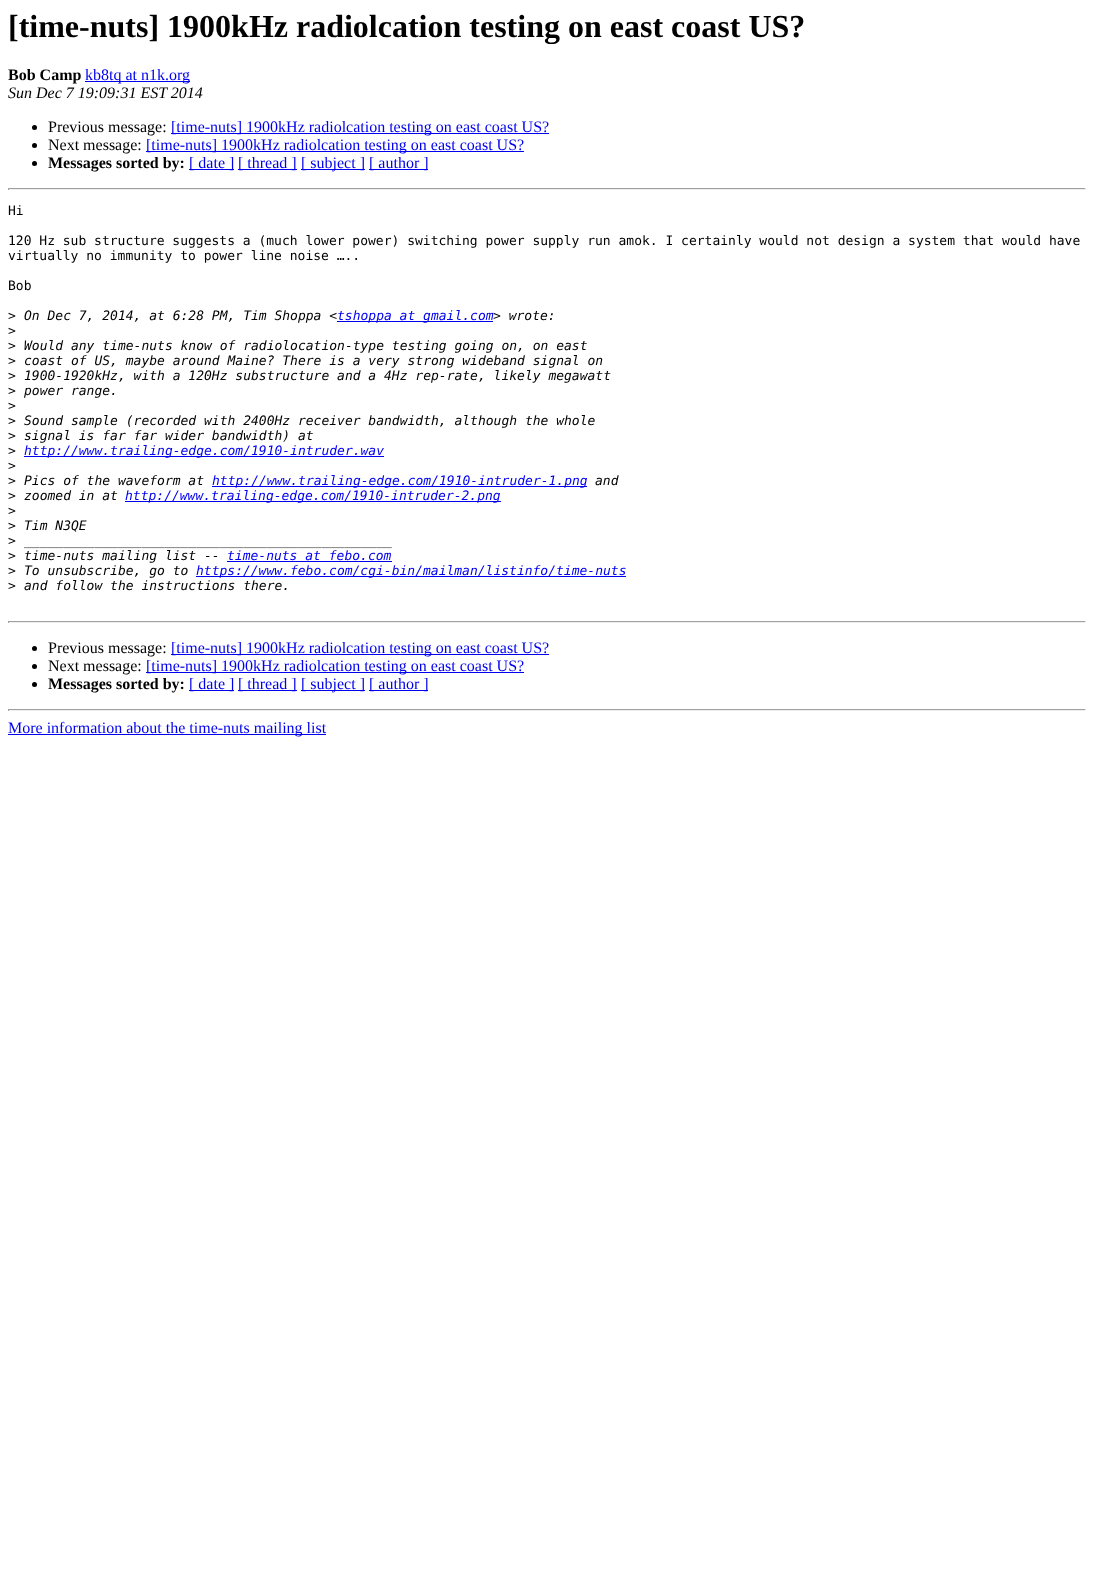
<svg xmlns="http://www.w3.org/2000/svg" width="1094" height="1579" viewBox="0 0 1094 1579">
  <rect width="100%" height="100%" fill="#ffffff"/>
  <text x="8" y="37" font-family="Liberation Serif" font-size="32" font-weight="bold" fill="#000000">[time-nuts] 1900kHz radiolcation testing on east coast US?</text>
  <text x="8" y="80" font-family="Liberation Serif" font-size="16" font-weight="bold" fill="#000000">Bob Camp</text>
  <rect x="85" y="81" width="105" height="1" fill="#0000ee"/>
  <text x="85" y="80" font-family="Liberation Serif" font-size="16" fill="#0000ee">kb8tq at n1k.org</text>
  <text x="8" y="98" font-family="Liberation Serif" font-size="16" font-style="italic" fill="#000000">Sun Dec 7 19:09:31 EST 2014</text>
  <circle cx="34.5" cy="127.5" r="2.5" fill="#000000"/>
  <text x="48" y="132" font-family="Liberation Serif" font-size="16" fill="#000000">Previous message:</text>
  <rect x="171" y="133" width="378" height="1" fill="#0000ee"/>
  <text x="171" y="132" font-family="Liberation Serif" font-size="16" fill="#0000ee">[time-nuts] 1900kHz radiolcation testing on east coast US?</text>
  <circle cx="34.5" cy="145.5" r="2.5" fill="#000000"/>
  <text x="48" y="150" font-family="Liberation Serif" font-size="16" fill="#000000">Next message:</text>
  <rect x="146" y="151" width="378" height="1" fill="#0000ee"/>
  <text x="146" y="150" font-family="Liberation Serif" font-size="16" fill="#0000ee">[time-nuts] 1900kHz radiolcation testing on east coast US?</text>
  <circle cx="34.5" cy="163.5" r="2.5" fill="#000000"/>
  <text x="48" y="168" font-family="Liberation Serif" font-size="16" font-weight="bold" fill="#000000">Messages sorted by:</text>
  <rect x="189" y="169" width="45" height="1" fill="#0000ee"/>
  <text x="189" y="168" font-family="Liberation Serif" font-size="16" fill="#0000ee">[ date ]</text>
  <rect x="238" y="169" width="59" height="1" fill="#0000ee"/>
  <text x="238" y="168" font-family="Liberation Serif" font-size="16" fill="#0000ee">[ thread ]</text>
  <rect x="301" y="169" width="64" height="1" fill="#0000ee"/>
  <text x="301" y="168" font-family="Liberation Serif" font-size="16" fill="#0000ee">[ subject ]</text>
  <rect x="369" y="169" width="59" height="1" fill="#0000ee"/>
  <text x="369" y="168" font-family="Liberation Serif" font-size="16" fill="#0000ee">[ author ]</text>
  <rect x="8" y="188" width="1078" height="1" fill="#9f9f9f"/>
  <rect x="1085" y="188" width="1" height="2" fill="#eeeeee"/>
  <rect x="8" y="189" width="1078" height="1" fill="#eeeeee"/>
  <rect x="8" y="188" width="1" height="2" fill="#9f9f9f"/>
  <text x="8" y="215" font-family="DejaVu Sans Mono" font-size="13" fill="#000000">Hi</text>
  <text x="8" y="245" font-family="DejaVu Sans Mono" font-size="13" fill="#000000">120 Hz sub structure suggests a (much lower power) switching power supply run amok. I certainly would not design a system that would have</text>
  <text x="8" y="260" font-family="DejaVu Sans Mono" font-size="13" fill="#000000">virtually no immunity to power line noise …..</text>
  <text x="8" y="290" font-family="DejaVu Sans Mono" font-size="13" fill="#000000">Bob</text>
  <text x="8" y="320" font-family="DejaVu Sans Mono" font-size="13" fill="#000000">&gt;</text>
  <text x="24" y="320" font-family="DejaVu Sans Mono" font-size="13" font-style="italic" fill="#000000">On Dec 7, 2014, at 6:28 PM, Tim Shoppa &lt;</text>
  <rect x="337" y="321" width="156" height="1" fill="#0000ee"/>
  <text x="337" y="320" font-family="DejaVu Sans Mono" font-size="13" font-style="italic" fill="#0000ee">tshoppa at gmail.com</text>
  <text x="493" y="320" font-family="DejaVu Sans Mono" font-size="13" font-style="italic" fill="#000000">&gt; wrote:</text>
  <text x="8" y="335" font-family="DejaVu Sans Mono" font-size="13" fill="#000000">&gt;</text>
  <text x="8" y="350" font-family="DejaVu Sans Mono" font-size="13" fill="#000000">&gt;</text>
  <text x="24" y="350" font-family="DejaVu Sans Mono" font-size="13" font-style="italic" fill="#000000">Would any time-nuts know of radiolocation-type testing going on, on east</text>
  <text x="8" y="365" font-family="DejaVu Sans Mono" font-size="13" fill="#000000">&gt;</text>
  <text x="24" y="365" font-family="DejaVu Sans Mono" font-size="13" font-style="italic" fill="#000000">coast of US, maybe around Maine? There is a very strong wideband signal on</text>
  <text x="8" y="380" font-family="DejaVu Sans Mono" font-size="13" fill="#000000">&gt;</text>
  <text x="24" y="380" font-family="DejaVu Sans Mono" font-size="13" font-style="italic" fill="#000000">1900-1920kHz, with a 120Hz substructure and a 4Hz rep-rate, likely megawatt</text>
  <text x="8" y="395" font-family="DejaVu Sans Mono" font-size="13" fill="#000000">&gt;</text>
  <text x="24" y="395" font-family="DejaVu Sans Mono" font-size="13" font-style="italic" fill="#000000">power range.</text>
  <text x="8" y="410" font-family="DejaVu Sans Mono" font-size="13" fill="#000000">&gt;</text>
  <text x="8" y="425" font-family="DejaVu Sans Mono" font-size="13" fill="#000000">&gt;</text>
  <text x="24" y="425" font-family="DejaVu Sans Mono" font-size="13" font-style="italic" fill="#000000">Sound sample (recorded with 2400Hz receiver bandwidth, although the whole</text>
  <text x="8" y="440" font-family="DejaVu Sans Mono" font-size="13" fill="#000000">&gt;</text>
  <text x="24" y="440" font-family="DejaVu Sans Mono" font-size="13" font-style="italic" fill="#000000">signal is far far wider bandwidth) at</text>
  <text x="8" y="455" font-family="DejaVu Sans Mono" font-size="13" fill="#000000">&gt;</text>
  <rect x="24" y="456" width="360" height="1" fill="#0000ee"/>
  <text x="24" y="455" font-family="DejaVu Sans Mono" font-size="13" font-style="italic" fill="#0000ee">http://www.trailing-edge.com/1910-intruder.wav</text>
  <text x="8" y="470" font-family="DejaVu Sans Mono" font-size="13" fill="#000000">&gt;</text>
  <text x="8" y="485" font-family="DejaVu Sans Mono" font-size="13" fill="#000000">&gt;</text>
  <text x="24" y="485" font-family="DejaVu Sans Mono" font-size="13" font-style="italic" fill="#000000">Pics of the waveform at</text>
  <rect x="212" y="486" width="375" height="1" fill="#0000ee"/>
  <text x="212" y="485" font-family="DejaVu Sans Mono" font-size="13" font-style="italic" fill="#0000ee">http://www.trailing-edge.com/1910-intruder-1.png</text>
  <text x="595" y="485" font-family="DejaVu Sans Mono" font-size="13" font-style="italic" fill="#000000">and</text>
  <text x="8" y="500" font-family="DejaVu Sans Mono" font-size="13" fill="#000000">&gt;</text>
  <text x="24" y="500" font-family="DejaVu Sans Mono" font-size="13" font-style="italic" fill="#000000">zoomed in at</text>
  <rect x="125" y="501" width="376" height="1" fill="#0000ee"/>
  <text x="125" y="500" font-family="DejaVu Sans Mono" font-size="13" font-style="italic" fill="#0000ee">http://www.trailing-edge.com/1910-intruder-2.png</text>
  <text x="8" y="515" font-family="DejaVu Sans Mono" font-size="13" fill="#000000">&gt;</text>
  <text x="8" y="530" font-family="DejaVu Sans Mono" font-size="13" fill="#000000">&gt;</text>
  <text x="24" y="530" font-family="DejaVu Sans Mono" font-size="13" font-style="italic" fill="#000000">Tim N3QE</text>
  <text x="8" y="545" font-family="DejaVu Sans Mono" font-size="13" fill="#000000">&gt;</text>
  <text x="24" y="545" font-family="DejaVu Sans Mono" font-size="13" font-style="italic" fill="#000000">_______________________________________________</text>
  <text x="8" y="560" font-family="DejaVu Sans Mono" font-size="13" fill="#000000">&gt;</text>
  <text x="24" y="560" font-family="DejaVu Sans Mono" font-size="13" font-style="italic" fill="#000000">time-nuts mailing list --</text>
  <text x="227" y="560" font-family="DejaVu Sans Mono" font-size="13" font-style="italic" fill="#0000ee">time-nuts at febo.com</text>
  <rect x="227" y="561" width="165" height="1" fill="#0000ee"/>
  <text x="8" y="575" font-family="DejaVu Sans Mono" font-size="13" fill="#000000">&gt;</text>
  <text x="24" y="575" font-family="DejaVu Sans Mono" font-size="13" font-style="italic" fill="#000000">To unsubscribe, go to</text>
  <rect x="196" y="576" width="430" height="1" fill="#0000ee"/>
  <text x="196" y="575" font-family="DejaVu Sans Mono" font-size="13" font-style="italic" fill="#0000ee">https://www.febo.com/cgi-bin/mailman/listinfo/time-nuts</text>
  <text x="8" y="590" font-family="DejaVu Sans Mono" font-size="13" fill="#000000">&gt;</text>
  <text x="24" y="590" font-family="DejaVu Sans Mono" font-size="13" font-style="italic" fill="#000000">and follow the instructions there.</text>
  <rect x="8" y="621" width="1078" height="1" fill="#9f9f9f"/>
  <rect x="1085" y="621" width="1" height="2" fill="#eeeeee"/>
  <rect x="8" y="622" width="1078" height="1" fill="#eeeeee"/>
  <rect x="8" y="621" width="1" height="2" fill="#9f9f9f"/>
  <circle cx="34.5" cy="648.5" r="2.5" fill="#000000"/>
  <text x="48" y="653" font-family="Liberation Serif" font-size="16" fill="#000000">Previous message:</text>
  <rect x="171" y="654" width="378" height="1" fill="#0000ee"/>
  <text x="171" y="653" font-family="Liberation Serif" font-size="16" fill="#0000ee">[time-nuts] 1900kHz radiolcation testing on east coast US?</text>
  <circle cx="34.5" cy="666.5" r="2.5" fill="#000000"/>
  <text x="48" y="671" font-family="Liberation Serif" font-size="16" fill="#000000">Next message:</text>
  <rect x="146" y="672" width="378" height="1" fill="#0000ee"/>
  <text x="146" y="671" font-family="Liberation Serif" font-size="16" fill="#0000ee">[time-nuts] 1900kHz radiolcation testing on east coast US?</text>
  <circle cx="34.5" cy="684.5" r="2.5" fill="#000000"/>
  <text x="48" y="689" font-family="Liberation Serif" font-size="16" font-weight="bold" fill="#000000">Messages sorted by:</text>
  <rect x="189" y="690" width="45" height="1" fill="#0000ee"/>
  <text x="189" y="689" font-family="Liberation Serif" font-size="16" fill="#0000ee">[ date ]</text>
  <rect x="238" y="690" width="59" height="1" fill="#0000ee"/>
  <text x="238" y="689" font-family="Liberation Serif" font-size="16" fill="#0000ee">[ thread ]</text>
  <rect x="301" y="690" width="64" height="1" fill="#0000ee"/>
  <text x="301" y="689" font-family="Liberation Serif" font-size="16" fill="#0000ee">[ subject ]</text>
  <rect x="369" y="690" width="59" height="1" fill="#0000ee"/>
  <text x="369" y="689" font-family="Liberation Serif" font-size="16" fill="#0000ee">[ author ]</text>
  <rect x="8" y="709" width="1078" height="1" fill="#9f9f9f"/>
  <rect x="1085" y="709" width="1" height="2" fill="#eeeeee"/>
  <rect x="8" y="710" width="1078" height="1" fill="#eeeeee"/>
  <rect x="8" y="709" width="1" height="2" fill="#9f9f9f"/>
  <rect x="8" y="734" width="318" height="1" fill="#0000ee"/>
  <text x="8" y="733" font-family="Liberation Serif" font-size="16" fill="#0000ee">More information about the time-nuts mailing list</text>
</svg>
